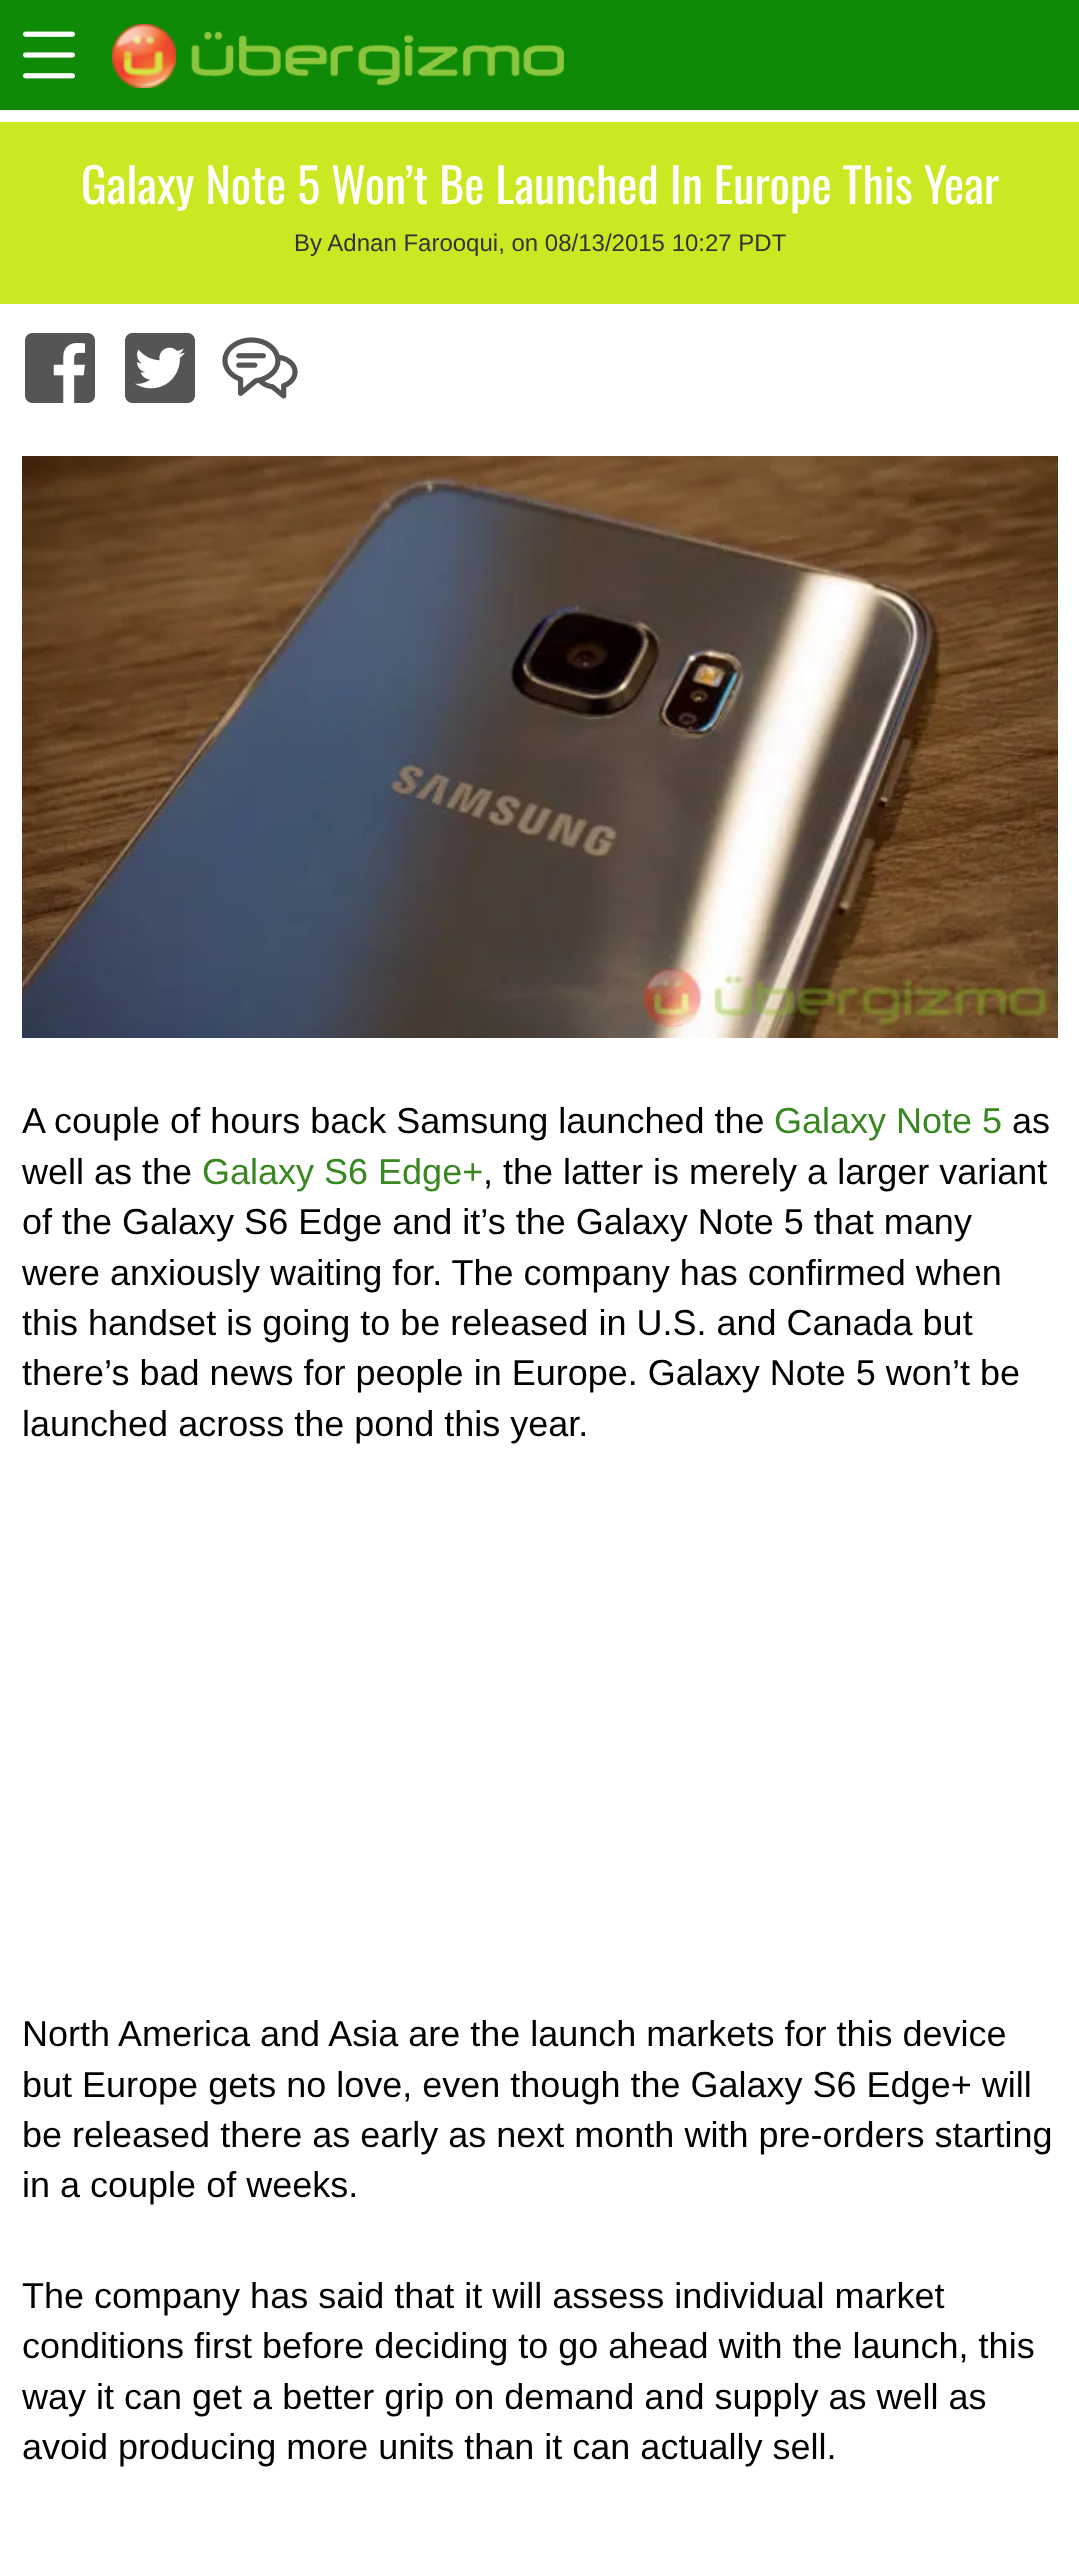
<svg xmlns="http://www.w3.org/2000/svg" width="1079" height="2551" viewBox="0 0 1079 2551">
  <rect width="100%" height="100%" fill="#ffffff"/>
  <rect x="0" y="0" width="1079" height="110" fill="#0f8a07"/>
  <image x="23" y="31" width="52" height="48" href="img1.png"/>
  <image x="112" y="24" width="64" height="64" href="img2.png"/>
  <image x="191" y="31" width="373" height="55" href="img3.png"/>
  <rect x="0" y="122" width="1079" height="182" fill="#cce823"/>
  <text x="81" y="204" font-family="Oswald" font-size="48" fill="#ffffff">Galaxy Note 5 Won’t Be Launched In Europe This Year</text>
  <text x="294" y="251" font-family="Liberation Sans" font-size="24" fill="#333333">By Adnan Farooqui, on 08/13/2015 10:27 PDT</text>
  <image x="25" y="333" width="70" height="70" href="img4.png"/>
  <image x="125" y="333" width="70" height="70" href="img5.png"/>
  <image x="222" y="337" width="76" height="62" href="img6.png"/>
  <image x="22" y="456" width="1036" height="582" href="img7.png"/>
  <text x="22" y="1133" font-family="Liberation Sans" font-size="36" fill="#000000">A couple of hours back Samsung launched the</text>
  <text x="774" y="1133" font-family="Liberation Sans" font-size="36" fill="#398720">Galaxy Note 5</text>
  <text x="1012" y="1133" font-family="Liberation Sans" font-size="36" fill="#000000">as</text>
  <text x="22" y="1184" font-family="Liberation Sans" font-size="36" fill="#000000">well as the</text>
  <text x="202" y="1184" font-family="Liberation Sans" font-size="36" fill="#398720">Galaxy S6 Edge+</text>
  <text x="483" y="1184" font-family="Liberation Sans" font-size="36" fill="#000000">, the latter is merely a larger variant</text>
  <text x="22" y="1234" font-family="Liberation Sans" font-size="36" fill="#000000">of the Galaxy S6 Edge and it’s the Galaxy Note 5 that many</text>
  <text x="22" y="1285" font-family="Liberation Sans" font-size="36" fill="#000000">were anxiously waiting for. The company has confirmed when</text>
  <text x="22" y="1335" font-family="Liberation Sans" font-size="36" fill="#000000">this handset is going to be released in U.S. and Canada but</text>
  <text x="22" y="1385" font-family="Liberation Sans" font-size="36" fill="#000000">there’s bad news for people in Europe. Galaxy Note 5 won’t be</text>
  <text x="22" y="1436" font-family="Liberation Sans" font-size="36" fill="#000000">launched across the pond this year.</text>
  <text x="22" y="2046" font-family="Liberation Sans" font-size="36" fill="#000000">North America and Asia are the launch markets for this device</text>
  <text x="22" y="2097" font-family="Liberation Sans" font-size="36" fill="#000000">but Europe gets no love, even though the Galaxy S6 Edge+ will</text>
  <text x="22" y="2147" font-family="Liberation Sans" font-size="36" fill="#000000">be released there as early as next month with pre-orders starting</text>
  <text x="22" y="2197" font-family="Liberation Sans" font-size="36" fill="#000000">in a couple of weeks.</text>
  <text x="22" y="2308" font-family="Liberation Sans" font-size="36" fill="#000000">The company has said that it will assess individual market</text>
  <text x="22" y="2358" font-family="Liberation Sans" font-size="36" fill="#000000">conditions first before deciding to go ahead with the launch, this</text>
  <text x="22" y="2409" font-family="Liberation Sans" font-size="36" fill="#000000">way it can get a better grip on demand and supply as well as</text>
  <text x="22" y="2459" font-family="Liberation Sans" font-size="36" fill="#000000">avoid producing more units than it can actually sell.</text>
</svg>
